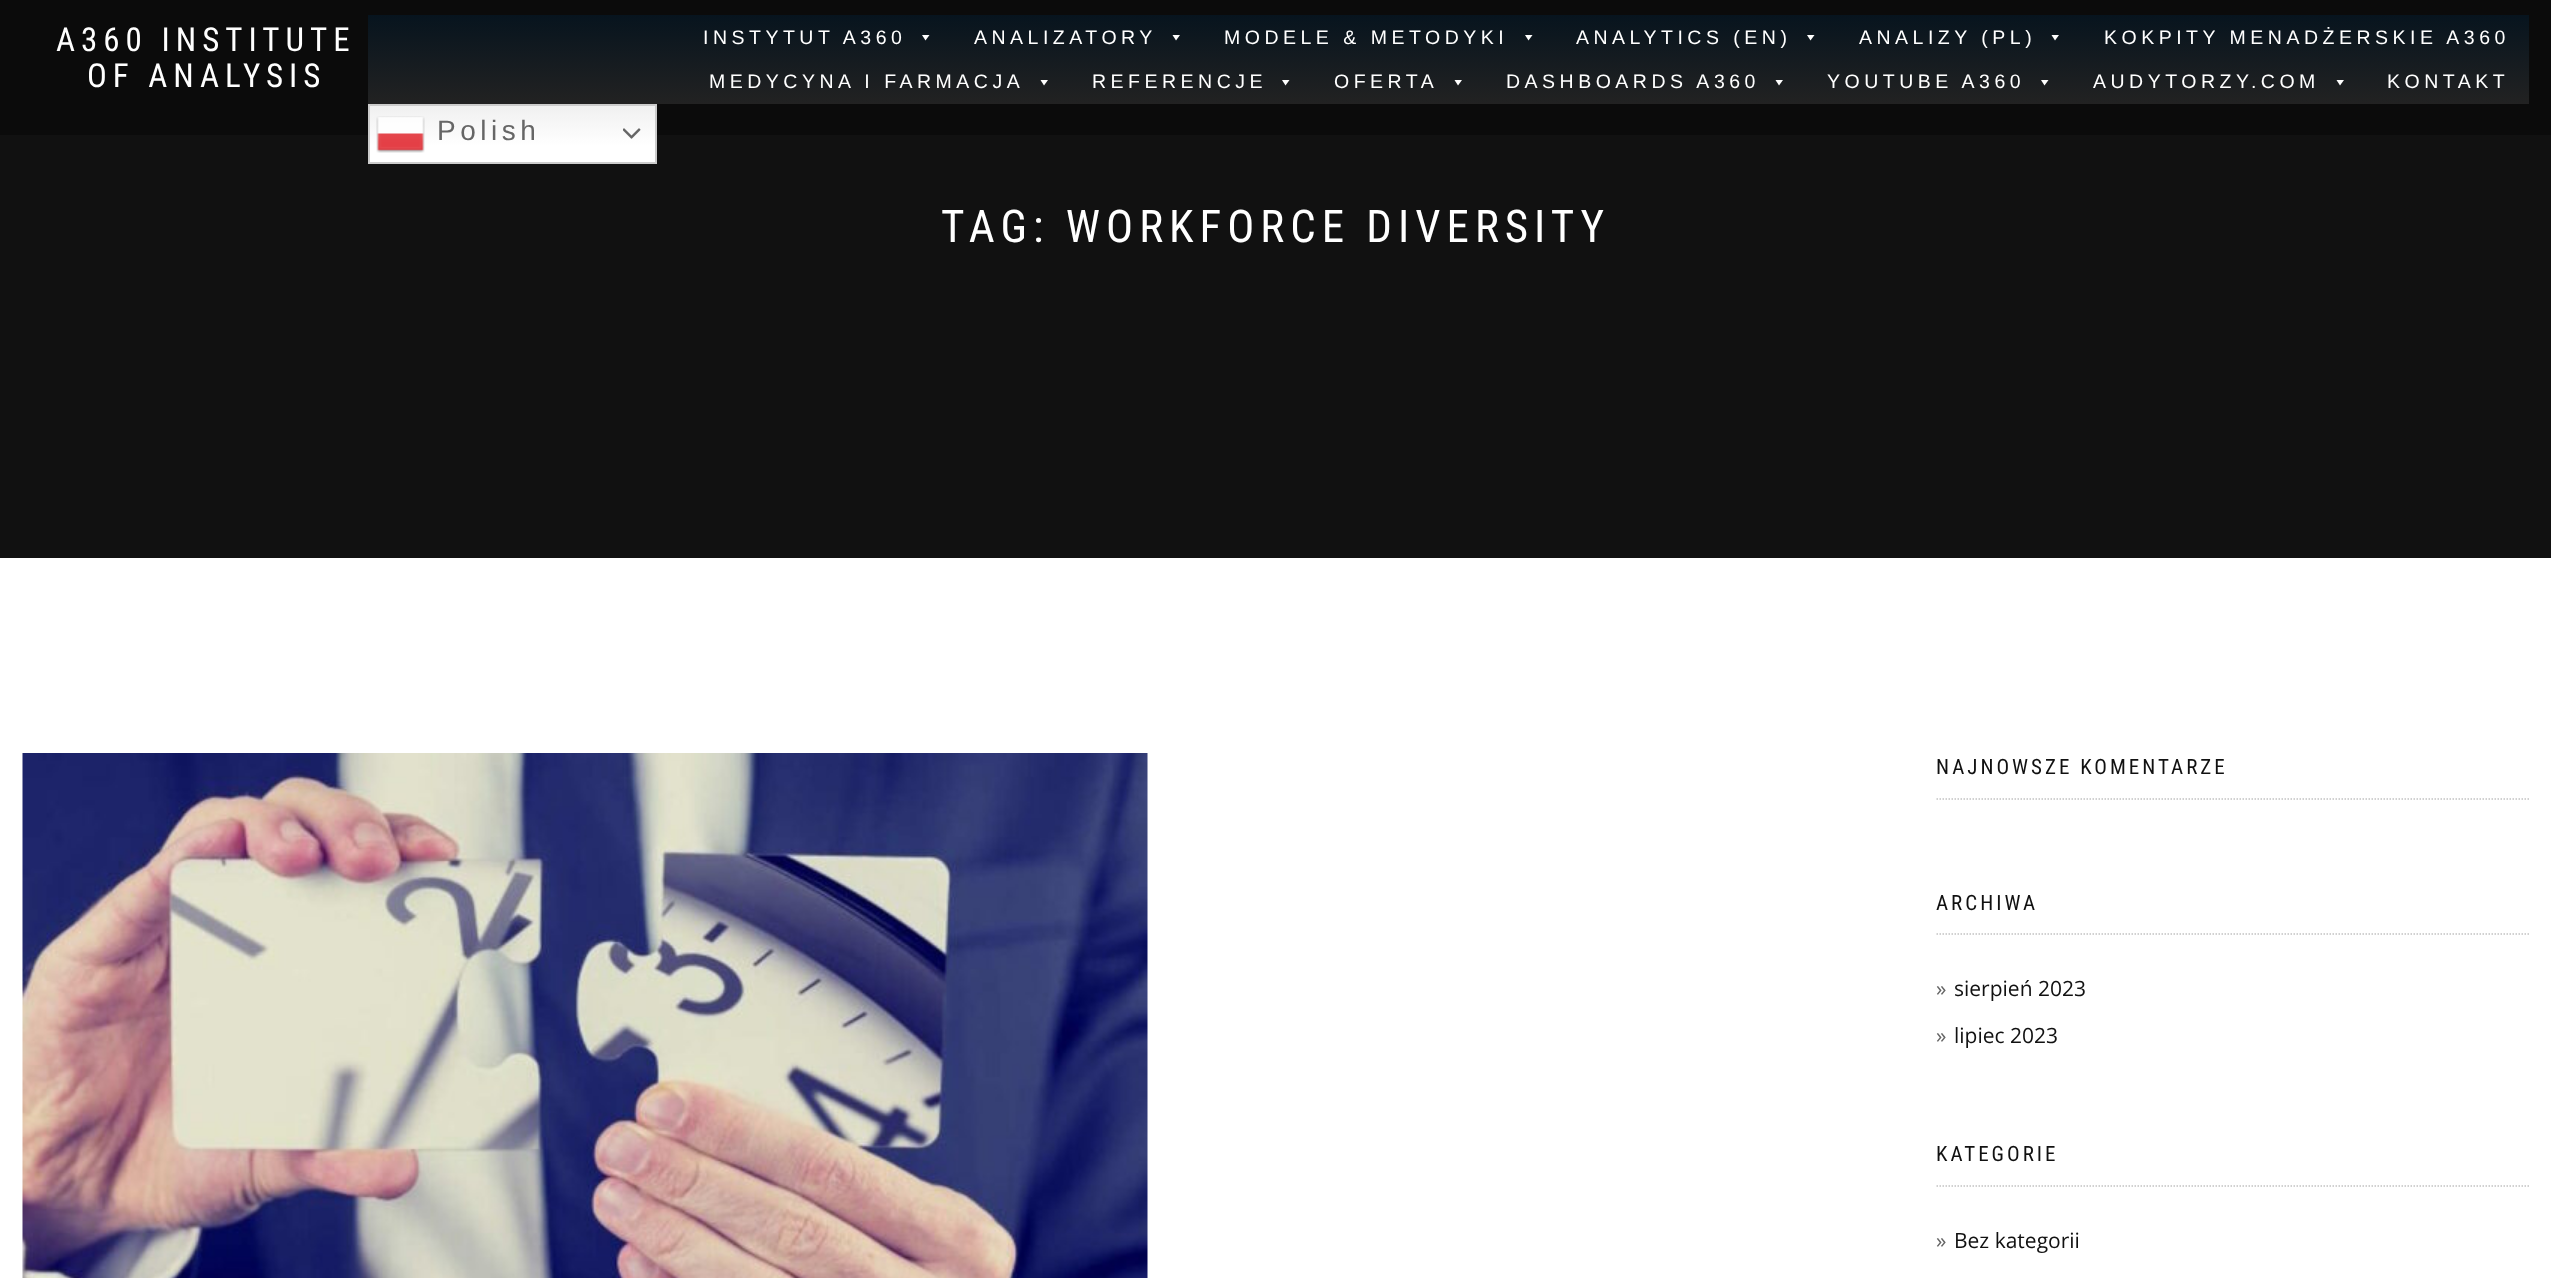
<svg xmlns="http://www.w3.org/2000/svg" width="2551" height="1278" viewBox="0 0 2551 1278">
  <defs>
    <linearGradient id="g1" gradientUnits="userSpaceOnUse" x1="1448" y1="15" x2="1448" y2="104"><stop offset="0" stop-color="#07141e"/><stop offset="1" stop-color="#222222"/></linearGradient>
    <linearGradient id="g2" gradientUnits="userSpaceOnUse" x1="512" y1="103" x2="512" y2="164"><stop offset="0" stop-color="#efefef"/><stop offset="0.7" stop-color="#ffffff"/></linearGradient>
  </defs>
  <rect width="100%" height="100%" fill="#ffffff"/>
  <rect x="0" y="0" width="2551" height="135" fill="#0b0b0b"/>
  <text x="56" y="51" font-family="Roboto Condensed" font-size="33" letter-spacing="6" fill="#ffffff">A360 INSTITUTE</text>
  <text x="87" y="87" font-family="Roboto Condensed" font-size="33" letter-spacing="6" fill="#ffffff">OF ANALYSIS</text>
  <rect x="368" y="15" width="2161" height="89" fill="url(#g1)"/>
  <text x="703" y="44" font-family="Liberation Sans" font-size="19.5" letter-spacing="4.5" fill="#ffffff">INSTYTUT A360</text>
  <path d="M929.5 35L925.5 40.5L922 35Z" fill="#ffffff"/>
  <text x="974" y="44" font-family="Liberation Sans" font-size="19.5" letter-spacing="4.5" fill="#ffffff">ANALIZATORY</text>
  <path d="M1180 35L1176 40.5L1172.5 35Z" fill="#ffffff"/>
  <text x="1224" y="44" font-family="Liberation Sans" font-size="19.5" letter-spacing="4.5" fill="#ffffff">MODELE &amp; METODYKI</text>
  <path d="M1532.5 35L1528.5 40.5L1525 35Z" fill="#ffffff"/>
  <text x="1576" y="44" font-family="Liberation Sans" font-size="19.5" letter-spacing="4.5" fill="#ffffff">ANALYTICS (EN)</text>
  <path d="M1814.5 35L1810.5 40.5L1807 35Z" fill="#ffffff"/>
  <text x="1859" y="44" font-family="Liberation Sans" font-size="19.5" letter-spacing="4.5" fill="#ffffff">ANALIZY (PL)</text>
  <path d="M2059 35L2055 40.5L2051.5 35Z" fill="#ffffff"/>
  <text x="2104" y="44" font-family="Liberation Sans" font-size="19.5" letter-spacing="4.5" fill="#ffffff">KOKPITY MENADŻERSKIE A360</text>
  <text x="709" y="88" font-family="Liberation Sans" font-size="19.5" letter-spacing="4.5" fill="#ffffff">MEDYCYNA I FARMACJA</text>
  <path d="M1048 80L1044 85.5L1040.5 80Z" fill="#ffffff"/>
  <text x="1092" y="88" font-family="Liberation Sans" font-size="19.5" letter-spacing="4.5" fill="#ffffff">REFERENCJE</text>
  <path d="M1289.5 80L1285.5 85.5L1282 80Z" fill="#ffffff"/>
  <text x="1334" y="88" font-family="Liberation Sans" font-size="19.5" letter-spacing="4.5" fill="#ffffff">OFERTA</text>
  <path d="M1462 80L1458 85.5L1454.5 80Z" fill="#ffffff"/>
  <text x="1506" y="88" font-family="Liberation Sans" font-size="19.5" letter-spacing="4.5" fill="#ffffff">DASHBOARDS A360</text>
  <path d="M1783 80L1779 85.5L1775.5 80Z" fill="#ffffff"/>
  <text x="1827" y="88" font-family="Liberation Sans" font-size="19.5" letter-spacing="4.5" fill="#ffffff">YOUTUBE A360</text>
  <path d="M2048.5 80L2044.5 85.5L2041 80Z" fill="#ffffff"/>
  <text x="2093" y="88" font-family="Liberation Sans" font-size="19.5" letter-spacing="4.5" fill="#ffffff">AUDYTORZY.COM</text>
  <path d="M2344 80L2340 85.5L2336.5 80Z" fill="#ffffff"/>
  <text x="2387" y="88" font-family="Liberation Sans" font-size="19.5" letter-spacing="4.5" fill="#ffffff">KONTAKT</text>
  <rect x="0" y="135" width="2551" height="423" fill="#111111"/>
  <rect x="370" y="106" width="285" height="56" fill="url(#g2)"/>
  <rect x="369" y="105" width="287" height="58" fill="none" stroke="#cccccc" stroke-width="2"/>
  <image x="376" y="116" width="49" height="37" href="img1.png"/>
  <text x="437" y="140" font-family="Liberation Sans" font-size="28" letter-spacing="4.5" fill="#666666">Polish</text>
  <image x="623" y="128" width="18" height="11" href="img2.png"/>
  <text x="941" y="242" font-family="Roboto Condensed" font-size="45" letter-spacing="6" fill="#ffffff">TAG: WORKFORCE DIVERSITY</text>
  <image x="22" y="753" width="1126" height="525" href="img3.png"/>
  <path d="M1936.5 799H2529" fill="none" stroke="#c2c2c2" stroke-width="1.5" stroke-dasharray="1.5 1.5"/>
  <text x="1936" y="774" font-family="Roboto Condensed" font-size="21" letter-spacing="3" fill="#111111">NAJNOWSZE KOMENTARZE</text>
  <path d="M1936.5 934H2529" fill="none" stroke="#c2c2c2" stroke-width="1.5" stroke-dasharray="1.5 1.5"/>
  <text x="1936" y="910" font-family="Roboto Condensed" font-size="21" letter-spacing="3" fill="#111111">ARCHIWA</text>
  <text x="1936" y="996" font-family="Open Sans" font-size="21" fill="#666666">»</text>
  <text x="1954" y="996" font-family="Open Sans" font-size="21" fill="#111111">sierpień 2023</text>
  <text x="1936" y="1043" font-family="Open Sans" font-size="21" fill="#666666">»</text>
  <text x="1954" y="1043" font-family="Open Sans" font-size="21" fill="#111111">lipiec 2023</text>
  <path d="M1936.5 1186H2529" fill="none" stroke="#c2c2c2" stroke-width="1.5" stroke-dasharray="1.5 1.5"/>
  <text x="1936" y="1161" font-family="Roboto Condensed" font-size="21" letter-spacing="3" fill="#111111">KATEGORIE</text>
  <text x="1936" y="1248" font-family="Open Sans" font-size="21" fill="#666666">»</text>
  <text x="1954" y="1248" font-family="Open Sans" font-size="21" fill="#111111">Bez kategorii</text>
</svg>
